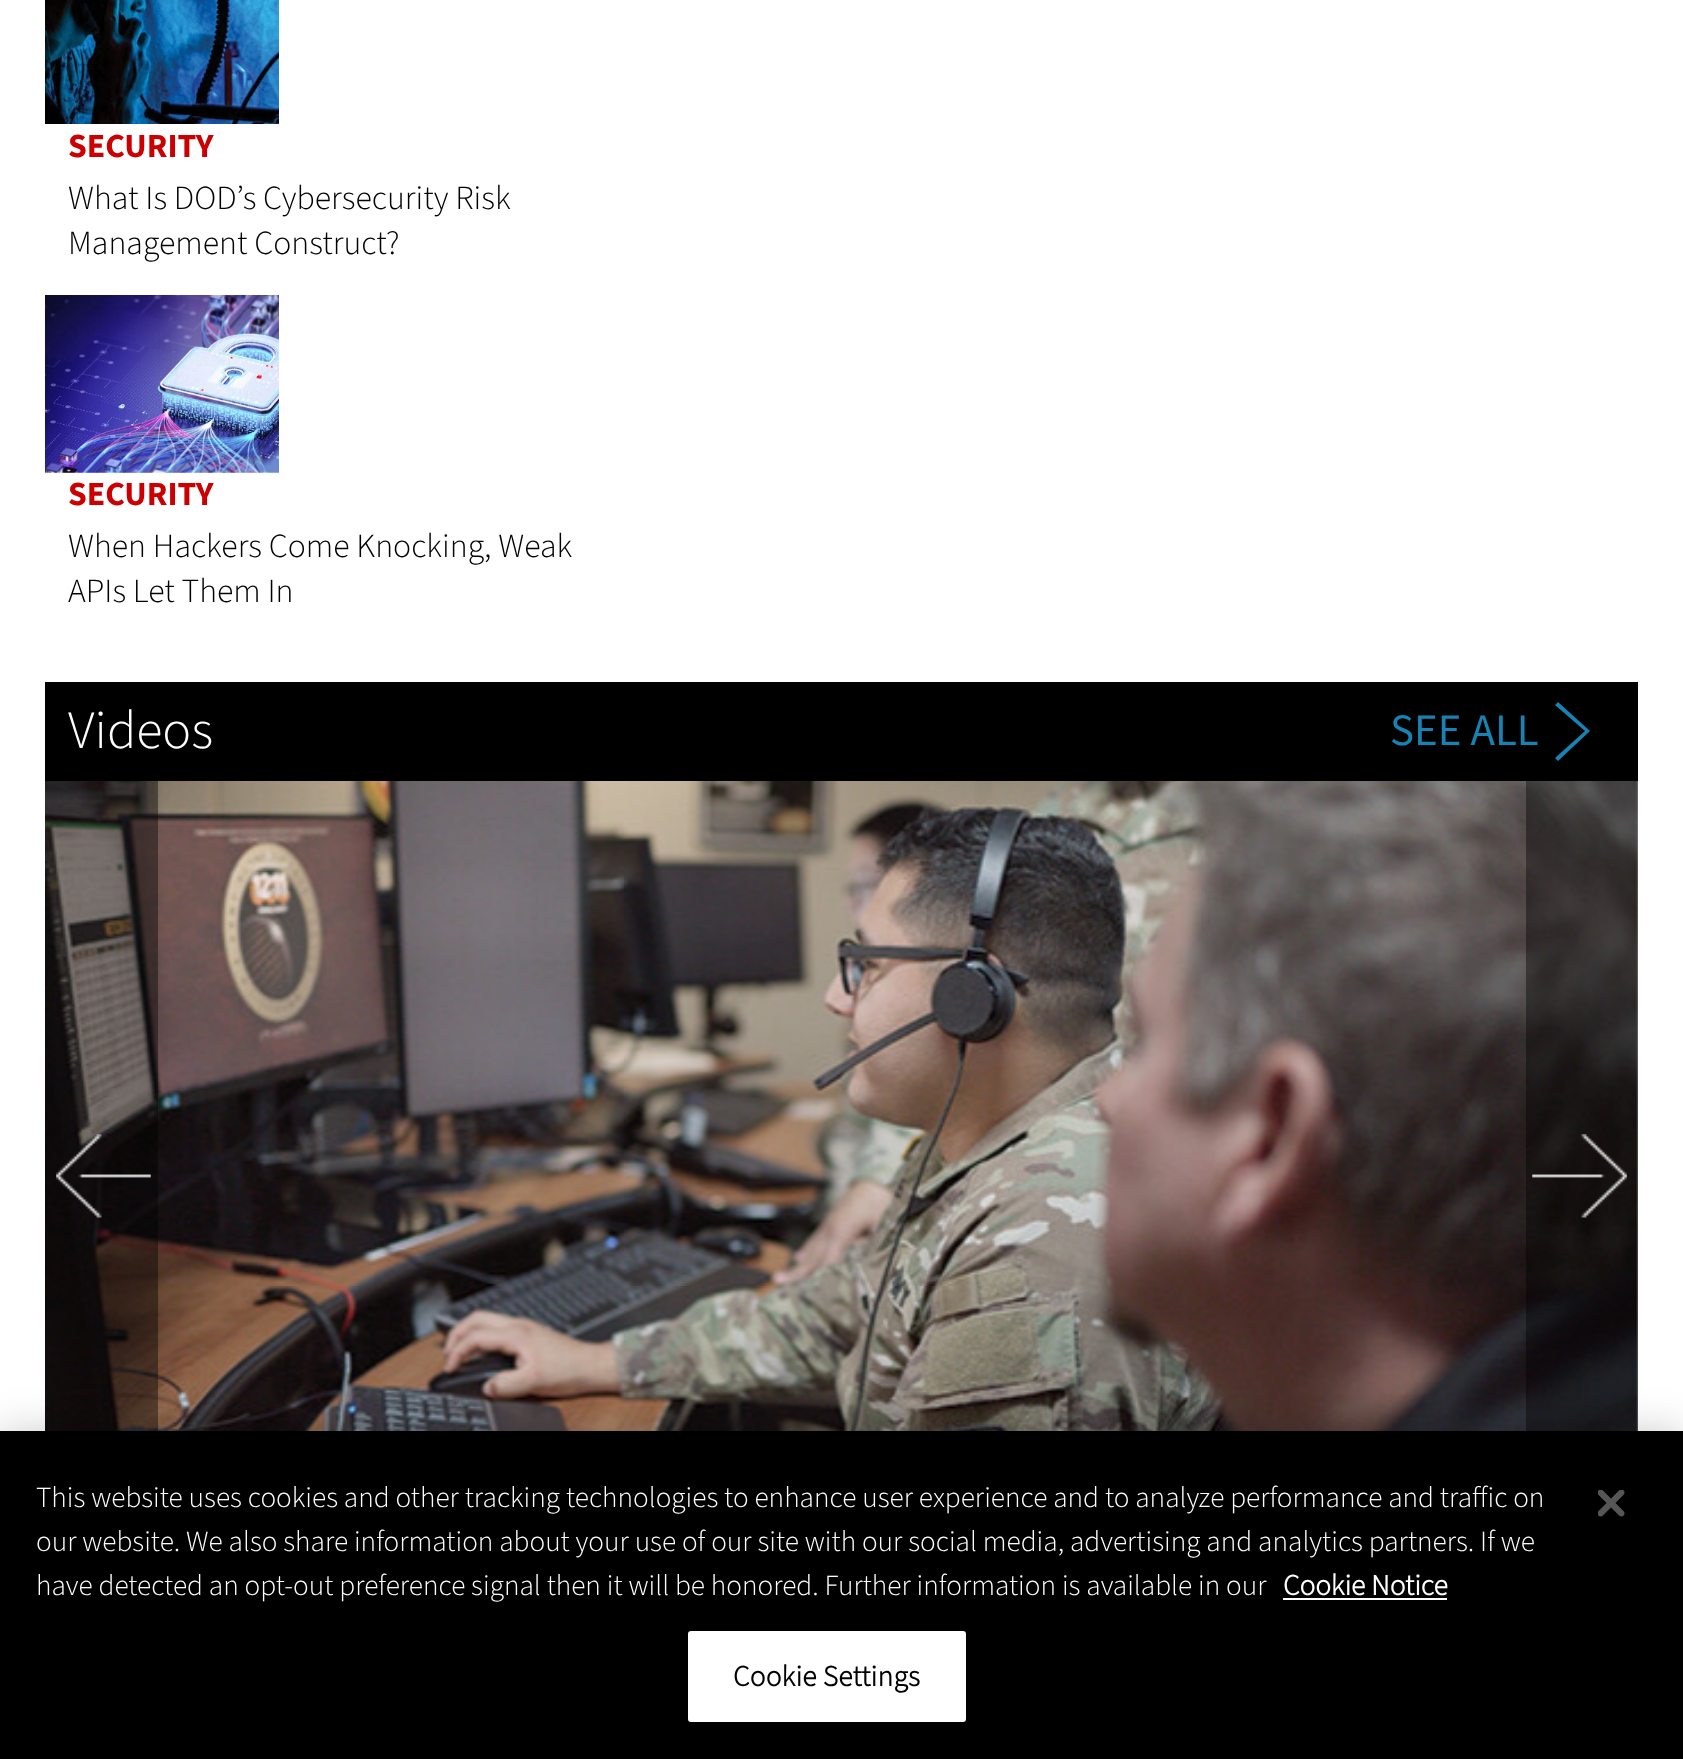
<svg xmlns="http://www.w3.org/2000/svg" width="1683" height="1759" viewBox="0 0 1683 1759">
  <defs>
    <filter id="blur1" x="-50%" y="-200%" width="200%" height="500%"><feGaussianBlur stdDeviation="20"/></filter>
  </defs>
  <rect width="100%" height="100%" fill="#ffffff"/>
  <image x="45" y="0" width="234" height="124" href="img1.png"/>
  <text x="68" y="157" font-family="'Source Sans 3'" font-size="33.75" font-weight="bold" fill="#cc0000">SECURITY</text>
  <text x="68" y="209" font-family="'Source Sans 3'" font-size="33.75" font-weight="300" fill="#000000">What Is DOD’s Cybersecurity Risk</text>
  <text x="68" y="254" font-family="'Source Sans 3'" font-size="33.75" font-weight="300" fill="#000000">Management Construct?</text>
  <image x="45" y="295" width="234" height="178" href="img2.png"/>
  <text x="68" y="505" font-family="'Source Sans 3'" font-size="33.75" font-weight="bold" fill="#cc0000">SECURITY</text>
  <text x="68" y="557" font-family="'Source Sans 3'" font-size="33.75" font-weight="300" fill="#000000">When Hackers Come Knocking, Weak</text>
  <text x="68" y="602" font-family="'Source Sans 3'" font-size="33.75" font-weight="300" fill="#000000">APIs Let Them In</text>
  <rect x="45" y="682" width="1593" height="99" fill="#000000"/>
  <text x="68" y="748" font-family="'Source Sans 3'" font-size="54" font-weight="300" fill="#ffffff">Videos</text>
  <text x="1390" y="745" font-family="'Source Sans 3'" font-size="45" fill="#1583b3">SEE ALL</text>
  <path d="M1558 702L1555 705L1585 731L1555 758L1558 761L1590 731Z" fill="#1583b3"/>
  <image x="45" y="781" width="1593" height="650" href="img3.png"/>
  <rect x="45" y="781" width="113" height="650" fill="#000000" fill-opacity="0.4"/>
  <image x="56" y="1134" width="95" height="84" href="img4.png"/>
  <rect x="1526" y="781" width="112" height="650" fill="#000000" fill-opacity="0.4"/>
  <image x="1532" y="1134" width="95" height="84" href="img5.png"/>
  <rect x="0" y="1431" width="1683" height="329" fill="#000000" fill-opacity="0.2" filter="url(#blur1)"/>
  <rect x="0" y="1431" width="1683" height="328" fill="#000000"/>
  <text x="36" y="1507" font-family="'Source Sans 3'" font-size="29.27" font-weight="300" fill="#ffffff">This website uses cookies and other tracking technologies to enhance user experience and to analyze performance and traffic on</text>
  <text x="36" y="1551" font-family="'Source Sans 3'" font-size="29.27" font-weight="300" fill="#ffffff">our website. We also share information about your use of our site with our social media, advertising and analytics partners. If we</text>
  <text x="36" y="1595" font-family="'Source Sans 3'" font-size="29.27" font-weight="300" fill="#ffffff">have detected an opt-out preference signal then it will be honored. Further information is available in our</text>
  <text x="1283" y="1595" font-family="'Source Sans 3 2'" font-size="29.27" font-weight="bold" fill="#ffffff">Cookie Notice</text>
  <rect x="1283" y="1598" width="164" height="2" fill="#ffffff"/>
  <rect x="687" y="1630" width="280" height="93" rx="4" fill="#ffffff" stroke="#000000" stroke-width="2"/>
  <text x="733" y="1686" font-family="'Source Sans 3 2'" font-size="29.27" font-weight="bold" letter-spacing="0.25" fill="#000000">Cookie Settings</text>
  <image x="1598" y="1490" width="27" height="27" href="img6.png"/>
</svg>
